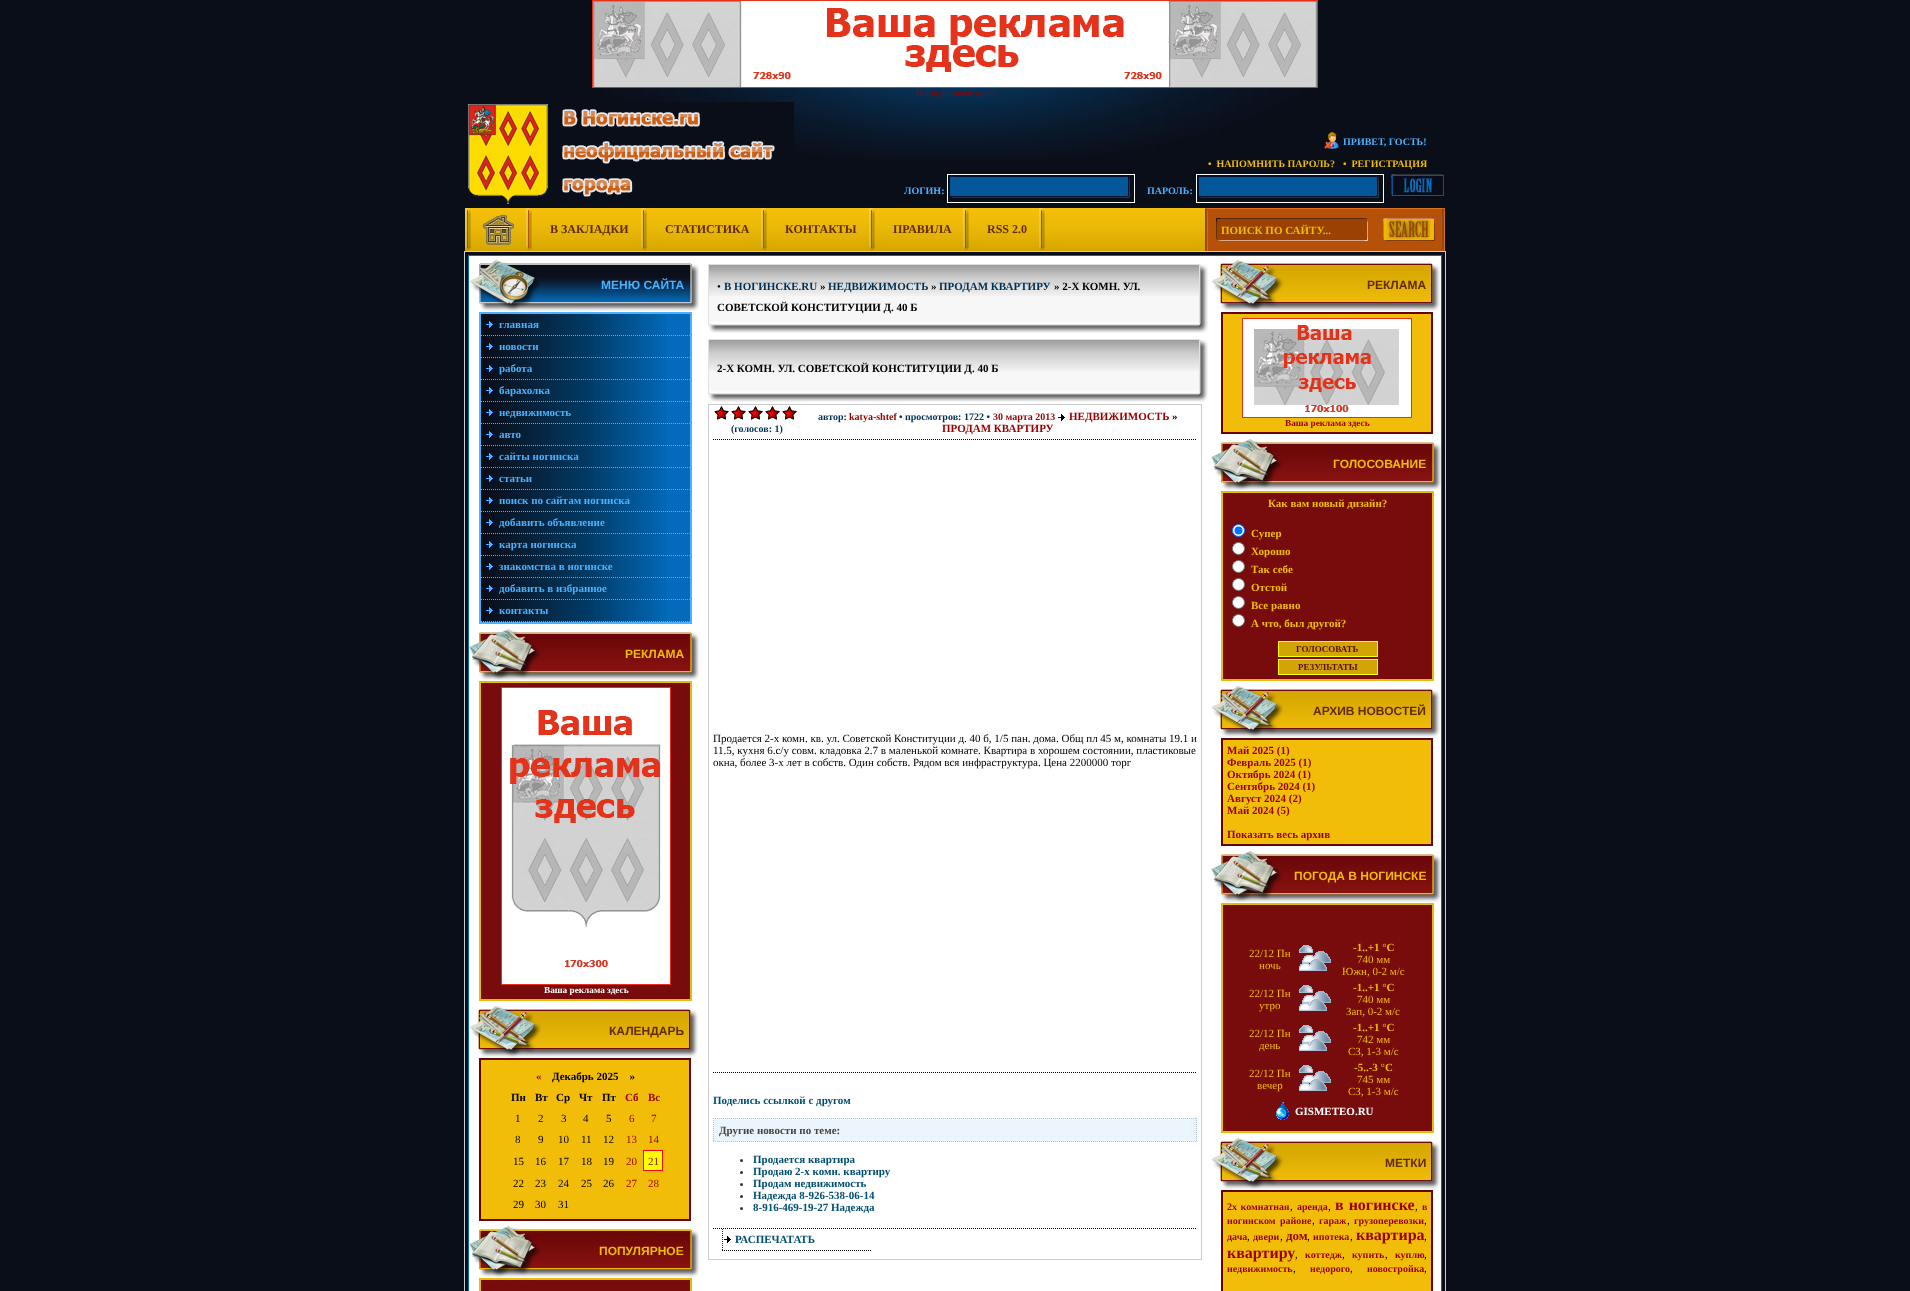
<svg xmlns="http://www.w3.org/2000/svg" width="1910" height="1291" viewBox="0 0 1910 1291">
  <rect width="100%" height="100%" fill="#0a0e19"/>
  <image x="605" y="88" width="700" height="72" href="img1.png"/>
  <image x="592" y="0" width="726" height="88" href="img2.png"/>
  <text x="916" y="96" font-family="Liberation Serif" font-size="9.25" fill="#990000">Ваша реклама здесь</text>
  <image x="468" y="102" width="326" height="102" href="img3.png"/>
  <image x="1324" y="132" width="15" height="18" href="img4.png"/>
  <text x="1343" y="145" font-family="Liberation Serif" font-size="10" font-weight="bold" fill="#4ab1fd">ПРИВЕТ, ГОСТЬ!</text>
  <text x="1208" y="167" font-family="Liberation Serif" font-size="10" font-weight="bold" fill="#eebb08" xml:space="preserve">•  НАПОМНИТЬ ПАРОЛЬ?</text>
  <text x="1343" y="167" font-family="Liberation Serif" font-size="10" font-weight="bold" fill="#eebb08" xml:space="preserve">•  РЕГИСТРАЦИЯ</text>
  <text x="904" y="194" font-family="Liberation Serif" font-size="10" font-weight="bold" fill="#4ab1fd">ЛОГИН:</text>
  <image x="948" y="175" width="182" height="23" href="img5.png"/>
  <rect x="947.5" y="174.5" width="187" height="28" fill="none" stroke="#ffffff"/>
  <text x="1147" y="194" font-family="Liberation Serif" font-size="10" font-weight="bold" fill="#4ab1fd">ПАРОЛЬ:</text>
  <image x="1197" y="175" width="182" height="23" href="img5.png"/>
  <rect x="1196.5" y="174.5" width="187" height="28" fill="none" stroke="#ffffff"/>
  <image x="1391" y="174" width="54" height="23" href="img6.png"/>
  <image x="471" y="208" width="734" height="43" href="img7.png"/>
  <image x="465" y="208" width="6" height="43" href="img8.png"/>
  <image x="526" y="208" width="6" height="43" href="img8.png"/>
  <image x="483" y="215" width="31" height="30" href="img9.png"/>
  <image x="641" y="208" width="6" height="43" href="img8.png"/>
  <text x="550" y="233" font-family="Liberation Serif" font-size="12" font-weight="bold" fill="#622b02">В ЗАКЛАДКИ</text>
  <image x="761" y="208" width="6" height="43" href="img8.png"/>
  <text x="665" y="233" font-family="Liberation Serif" font-size="12" font-weight="bold" fill="#622b02">СТАТИСТИКА</text>
  <image x="869" y="208" width="6" height="43" href="img8.png"/>
  <text x="785" y="233" font-family="Liberation Serif" font-size="12" font-weight="bold" fill="#622b02">КОНТАКТЫ</text>
  <image x="963" y="208" width="6" height="43" href="img8.png"/>
  <text x="893" y="233" font-family="Liberation Serif" font-size="12" font-weight="bold" fill="#622b02">ПРАВИЛА</text>
  <image x="1039" y="208" width="6" height="43" href="img8.png"/>
  <text x="987" y="233" font-family="Liberation Serif" font-size="12" font-weight="bold" fill="#622b02">RSS 2.0</text>
  <image x="1205" y="208" width="240" height="43" href="img10.png"/>
  <text x="1221" y="234" font-family="Liberation Serif" font-size="11" font-weight="bold" fill="#eebb08">ПОИСК ПО САЙТУ...</text>
  <image x="1383" y="218" width="52" height="23" href="img11.png"/>
  <rect x="464.5" y="251.5" width="981" height="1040" fill="none" stroke="#cccccc"/>
  <rect x="468.5" y="255.5" width="973" height="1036" fill="#ffffff" stroke="#026bbc"/>
  <image x="469" y="260" width="230" height="51" href="img12.png"/>
  <text x="601" y="289" font-family="Liberation Sans" font-size="12" font-weight="bold" fill="#4ab1fd">МЕНЮ САЙТА</text>
  <rect x="667" y="314" width="23" height="308" fill="#026bbc"/>
  <image x="481" y="314" width="186" height="308" href="img13.png"/>
  <rect x="480" y="313" width="211" height="310" fill="none" stroke="#4ab1fd" stroke-width="2"/>
  <image x="486" y="321" width="7" height="7" href="img14.png"/>
  <path d="M481 335.5H690" fill="none" stroke="#4ab1fd" stroke-dasharray="1 1"/>
  <text x="499" y="328" font-family="Liberation Serif" font-size="11" font-weight="bold" fill="#4ab1fd">главная</text>
  <image x="486" y="343" width="7" height="7" href="img14.png"/>
  <path d="M481 357.5H690" fill="none" stroke="#4ab1fd" stroke-dasharray="1 1"/>
  <text x="499" y="350" font-family="Liberation Serif" font-size="11" font-weight="bold" fill="#4ab1fd">новости</text>
  <image x="486" y="365" width="7" height="7" href="img14.png"/>
  <path d="M481 379.5H690" fill="none" stroke="#4ab1fd" stroke-dasharray="1 1"/>
  <text x="499" y="372" font-family="Liberation Serif" font-size="11" font-weight="bold" fill="#4ab1fd">работа</text>
  <image x="486" y="387" width="7" height="7" href="img14.png"/>
  <path d="M481 401.5H690" fill="none" stroke="#4ab1fd" stroke-dasharray="1 1"/>
  <text x="499" y="394" font-family="Liberation Serif" font-size="11" font-weight="bold" fill="#4ab1fd">барахолка</text>
  <image x="486" y="409" width="7" height="7" href="img14.png"/>
  <path d="M481 423.5H690" fill="none" stroke="#4ab1fd" stroke-dasharray="1 1"/>
  <text x="499" y="416" font-family="Liberation Serif" font-size="11" font-weight="bold" fill="#4ab1fd">недвижимость</text>
  <image x="486" y="431" width="7" height="7" href="img14.png"/>
  <path d="M481 445.5H690" fill="none" stroke="#4ab1fd" stroke-dasharray="1 1"/>
  <text x="499" y="438" font-family="Liberation Serif" font-size="11" font-weight="bold" fill="#4ab1fd">авто</text>
  <image x="486" y="453" width="7" height="7" href="img14.png"/>
  <path d="M481 467.5H690" fill="none" stroke="#4ab1fd" stroke-dasharray="1 1"/>
  <text x="499" y="460" font-family="Liberation Serif" font-size="11" font-weight="bold" fill="#4ab1fd">сайты ногинска</text>
  <image x="486" y="475" width="7" height="7" href="img14.png"/>
  <path d="M481 489.5H690" fill="none" stroke="#4ab1fd" stroke-dasharray="1 1"/>
  <text x="499" y="482" font-family="Liberation Serif" font-size="11" font-weight="bold" fill="#4ab1fd">статьи</text>
  <image x="486" y="497" width="7" height="7" href="img14.png"/>
  <path d="M481 511.5H690" fill="none" stroke="#4ab1fd" stroke-dasharray="1 1"/>
  <text x="499" y="504" font-family="Liberation Serif" font-size="11" font-weight="bold" fill="#4ab1fd">поиск по сайтам ногинска</text>
  <image x="486" y="519" width="7" height="7" href="img14.png"/>
  <path d="M481 533.5H690" fill="none" stroke="#4ab1fd" stroke-dasharray="1 1"/>
  <text x="499" y="526" font-family="Liberation Serif" font-size="11" font-weight="bold" fill="#4ab1fd">добавить объявление</text>
  <image x="486" y="541" width="7" height="7" href="img14.png"/>
  <path d="M481 555.5H690" fill="none" stroke="#4ab1fd" stroke-dasharray="1 1"/>
  <text x="499" y="548" font-family="Liberation Serif" font-size="11" font-weight="bold" fill="#4ab1fd">карта ногинска</text>
  <image x="486" y="563" width="7" height="7" href="img14.png"/>
  <path d="M481 577.5H690" fill="none" stroke="#4ab1fd" stroke-dasharray="1 1"/>
  <text x="499" y="570" font-family="Liberation Serif" font-size="11" font-weight="bold" fill="#4ab1fd">знакомства в ногинске</text>
  <image x="486" y="585" width="7" height="7" href="img14.png"/>
  <path d="M481 599.5H690" fill="none" stroke="#4ab1fd" stroke-dasharray="1 1"/>
  <text x="499" y="592" font-family="Liberation Serif" font-size="11" font-weight="bold" fill="#4ab1fd">добавить в избранное</text>
  <image x="486" y="607" width="7" height="7" href="img14.png"/>
  <path d="M481 621.5H690" fill="none" stroke="#4ab1fd" stroke-dasharray="1 1"/>
  <text x="499" y="614" font-family="Liberation Serif" font-size="11" font-weight="bold" fill="#4ab1fd">контакты</text>
  <image x="469" y="629" width="230" height="51" href="img15.png"/>
  <text x="625" y="658" font-family="Liberation Sans" font-size="12" font-weight="bold" fill="#eebb08">РЕКЛАМА</text>
  <rect x="480" y="682" width="211" height="318" fill="#780c0c" stroke="#ebb907" stroke-width="2"/>
  <image x="501" y="687" width="170" height="298" href="img16.png"/>
  <text x="544" y="993" font-family="Liberation Serif" font-size="9.25" font-weight="bold" fill="#ffffff">Ваша реклама здесь</text>
  <image x="469" y="1006" width="229" height="51" href="img17.png"/>
  <text x="609" y="1035" font-family="Liberation Sans" font-size="12" font-weight="bold" fill="#622b02">КАЛЕНДАРЬ</text>
  <rect x="480" y="1059" width="210" height="161" fill="#f1bd09" stroke="#670506" stroke-width="2"/>
  <text x="536" y="1080" font-family="Liberation Serif" font-size="11" font-weight="bold" fill="#990000">«</text>
  <text x="552" y="1080" font-family="Liberation Serif" font-size="11" font-weight="bold" fill="#000000" xml:space="preserve">Декабрь 2025    »</text>
  <text x="511" y="1101" font-family="Liberation Serif" font-size="11" font-weight="bold" fill="#000000">Пн</text>
  <text x="535" y="1101" font-family="Liberation Serif" font-size="11" font-weight="bold" fill="#000000">Вт</text>
  <text x="556" y="1101" font-family="Liberation Serif" font-size="11" font-weight="bold" fill="#000000">Ср</text>
  <text x="579" y="1101" font-family="Liberation Serif" font-size="11" font-weight="bold" fill="#000000">Чт</text>
  <text x="602" y="1101" font-family="Liberation Serif" font-size="11" font-weight="bold" fill="#000000">Пт</text>
  <text x="625" y="1101" font-family="Liberation Serif" font-size="11" font-weight="bold" fill="#990000">Сб</text>
  <text x="648" y="1101" font-family="Liberation Serif" font-size="11" font-weight="bold" fill="#990000">Вс</text>
  <text x="515" y="1122" font-family="Liberation Serif" font-size="11" fill="#000000">1</text>
  <text x="538" y="1122" font-family="Liberation Serif" font-size="11" fill="#000000">2</text>
  <text x="561" y="1122" font-family="Liberation Serif" font-size="11" fill="#000000">3</text>
  <text x="583" y="1122" font-family="Liberation Serif" font-size="11" fill="#000000">4</text>
  <text x="606" y="1122" font-family="Liberation Serif" font-size="11" fill="#000000">5</text>
  <text x="629" y="1122" font-family="Liberation Serif" font-size="11" fill="#990000">6</text>
  <text x="651" y="1122" font-family="Liberation Serif" font-size="11" fill="#990000">7</text>
  <text x="515" y="1143" font-family="Liberation Serif" font-size="11" fill="#000000">8</text>
  <text x="538" y="1143" font-family="Liberation Serif" font-size="11" fill="#000000">9</text>
  <text x="558" y="1143" font-family="Liberation Serif" font-size="11" fill="#000000">10</text>
  <text x="581" y="1143" font-family="Liberation Serif" font-size="11" fill="#000000">11</text>
  <text x="603" y="1143" font-family="Liberation Serif" font-size="11" fill="#000000">12</text>
  <text x="626" y="1143" font-family="Liberation Serif" font-size="11" fill="#990000">13</text>
  <text x="648" y="1143" font-family="Liberation Serif" font-size="11" fill="#990000">14</text>
  <text x="513" y="1165" font-family="Liberation Serif" font-size="11" fill="#000000">15</text>
  <text x="535" y="1165" font-family="Liberation Serif" font-size="11" fill="#000000">16</text>
  <text x="558" y="1165" font-family="Liberation Serif" font-size="11" fill="#000000">17</text>
  <text x="581" y="1165" font-family="Liberation Serif" font-size="11" fill="#000000">18</text>
  <text x="603" y="1165" font-family="Liberation Serif" font-size="11" fill="#000000">19</text>
  <text x="626" y="1165" font-family="Liberation Serif" font-size="11" fill="#990000">20</text>
  <rect x="643.5" y="1150.5" width="19" height="20" fill="#ffff00" stroke="#ff0000"/>
  <text x="648" y="1165" font-family="Liberation Serif" font-size="11" fill="#990000">21</text>
  <text x="513" y="1187" font-family="Liberation Serif" font-size="11" fill="#000000">22</text>
  <text x="535" y="1187" font-family="Liberation Serif" font-size="11" fill="#000000">23</text>
  <text x="558" y="1187" font-family="Liberation Serif" font-size="11" fill="#000000">24</text>
  <text x="581" y="1187" font-family="Liberation Serif" font-size="11" fill="#000000">25</text>
  <text x="603" y="1187" font-family="Liberation Serif" font-size="11" fill="#000000">26</text>
  <text x="626" y="1187" font-family="Liberation Serif" font-size="11" fill="#990000">27</text>
  <text x="648" y="1187" font-family="Liberation Serif" font-size="11" fill="#990000">28</text>
  <text x="513" y="1208" font-family="Liberation Serif" font-size="11" fill="#000000">29</text>
  <text x="535" y="1208" font-family="Liberation Serif" font-size="11" fill="#000000">30</text>
  <text x="558" y="1208" font-family="Liberation Serif" font-size="11" fill="#000000">31</text>
  <image x="469" y="1226" width="230" height="51" href="img15.png"/>
  <text x="599" y="1255" font-family="Liberation Sans" font-size="12" font-weight="bold" fill="#eebb08">ПОПУЛЯРНОЕ</text>
  <rect x="480" y="1279" width="211" height="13" fill="#780c0c" stroke="#ebb907" stroke-width="2"/>
  <image x="708" y="264" width="500" height="57" href="img18.png"/>
  <image x="709" y="264" width="499" height="32" href="img19.png"/>
  <text x="717" y="290" font-family="Liberation Serif" font-size="11" fill="#000000">•</text>
  <text x="724" y="290" font-family="Liberation Serif" font-size="11" font-weight="bold" fill="#003155">В НОГИНСКЕ.RU</text>
  <text x="820" y="290" font-family="Liberation Serif" font-size="11" font-weight="bold" fill="#000000">»</text>
  <text x="828" y="290" font-family="Liberation Serif" font-size="11" font-weight="bold" fill="#003155">НЕДВИЖИМОСТЬ</text>
  <text x="931" y="290" font-family="Liberation Serif" font-size="11" font-weight="bold" fill="#000000">»</text>
  <text x="939" y="290" font-family="Liberation Serif" font-size="11" font-weight="bold" fill="#003155">ПРОДАМ КВАРТИРУ</text>
  <text x="1054" y="290" font-family="Liberation Serif" font-size="11" font-weight="bold" fill="#000000">» 2-Х КОМН. УЛ.</text>
  <text x="717" y="311" font-family="Liberation Serif" font-size="11" font-weight="bold" fill="#000000">СОВЕТСКОЙ КОНСТИТУЦИИ Д. 40 Б</text>
  <image x="708" y="321" width="500" height="12" href="img20.png"/>
  <image x="708" y="339" width="500" height="51" href="img21.png"/>
  <image x="709" y="339" width="499" height="32" href="img19.png"/>
  <text x="717" y="372" font-family="Liberation Serif" font-size="11" font-weight="bold" fill="#000000">2-Х КОМН. УЛ. СОВЕТСКОЙ КОНСТИТУЦИИ Д. 40 Б</text>
  <image x="708" y="390" width="500" height="12" href="img20.png"/>
  <rect x="708.5" y="404.5" width="493" height="855" fill="none" stroke="#cccccc"/>
  <image x="714" y="406" width="83" height="14" href="img22.png"/>
  <image x="714" y="406" width="83" height="14" href="img23.png"/>
  <text x="731" y="432" font-family="Liberation Serif" font-size="10" font-weight="bold" fill="#003155">(голосов: 1)</text>
  <text x="818" y="420" font-family="Liberation Serif" font-size="10" font-weight="bold" fill="#003155">автор:</text>
  <text x="849" y="420" font-family="Liberation Serif" font-size="10" font-weight="bold" fill="#990000">katya-shtef</text>
  <text x="899" y="420" font-family="Liberation Serif" font-size="10" font-weight="bold" fill="#003155">• просмотров: 1722 •</text>
  <text x="993" y="420" font-family="Liberation Serif" font-size="10" font-weight="bold" fill="#990000">30 марта 2013</text>
  <image x="1058" y="414" width="7" height="7" href="img24.png"/>
  <text x="1069" y="420" font-family="Liberation Serif" font-size="11" font-weight="bold" fill="#990000">НЕДВИЖИМОСТЬ</text>
  <text x="1172" y="420" font-family="Liberation Serif" font-size="11" font-weight="bold" fill="#000000">»</text>
  <text x="942" y="432" font-family="Liberation Serif" font-size="11" font-weight="bold" fill="#990000">ПРОДАМ КВАРТИРУ</text>
  <path d="M713 439.5H1197" fill="none" stroke="#000000" stroke-dasharray="1 1"/>
  <path d="M713 1072.5H1197" fill="none" stroke="#000000" stroke-dasharray="1 1"/>
  <text x="713" y="742" font-family="Liberation Serif" font-size="11" fill="#000000">Продается 2-х комн. кв. ул. Советской Конституции д. 40 б, 1/5 пан. дома. Общ пл 45 м, комнаты 19.1 и</text>
  <text x="713" y="754" font-family="Liberation Serif" font-size="11" fill="#000000">11.5, кухня 6.с/у совм. кладовка 2.7 в маленькой комнате. Квартира в хорошем состоянии, пластиковые</text>
  <text x="713" y="766" font-family="Liberation Serif" font-size="11" fill="#000000">окна, более 3-х лет в собств. Один собств. Рядом вся инфраструктура. Цена 2200000 торг</text>
  <path d="M713 1228.5H1197" fill="none" stroke="#000000" stroke-dasharray="1 1"/>
  <text x="713" y="1104" font-family="Liberation Serif" font-size="11" font-weight="bold" fill="#004f71">Поделись ссылкой с другом</text>
  <rect x="713" y="1118" width="484" height="24" fill="#ecf5fb"/>
  <path d="M713 1118.5H1197" fill="none" stroke="#afc2ec" stroke-dasharray="1 1"/>
  <path d="M1196.5 1118V1142" fill="none" stroke="#afc2ec" stroke-dasharray="1 1"/>
  <path d="M713 1141.5H1197" fill="none" stroke="#afc2ec" stroke-dasharray="1 1"/>
  <path d="M713.5 1118V1142" fill="none" stroke="#afc2ec" stroke-dasharray="1 1"/>
  <text x="719" y="1134" font-family="Liberation Serif" font-size="11" font-weight="bold" fill="#444444">Другие новости по теме:</text>
  <circle cx="741.5" cy="1160.5" r="1.5" fill="#333333"/>
  <text x="753" y="1163" font-family="Liberation Serif" font-size="11" font-weight="bold" fill="#004f71">Продается квартира</text>
  <circle cx="741.5" cy="1172.5" r="1.5" fill="#333333"/>
  <text x="753" y="1175" font-family="Liberation Serif" font-size="11" font-weight="bold" fill="#004f71">Продаю 2-х комн. квартиру</text>
  <circle cx="741.5" cy="1184.5" r="1.5" fill="#333333"/>
  <text x="753" y="1187" font-family="Liberation Serif" font-size="11" font-weight="bold" fill="#004f71">Продам недвижимость</text>
  <circle cx="741.5" cy="1196.5" r="1.5" fill="#333333"/>
  <text x="753" y="1199" font-family="Liberation Serif" font-size="11" font-weight="bold" fill="#004f71">Надежда 8-926-538-06-14</text>
  <circle cx="741.5" cy="1208.5" r="1.5" fill="#333333"/>
  <text x="753" y="1211" font-family="Liberation Serif" font-size="11" font-weight="bold" fill="#004f71">8-916-469-19-27 Надежда</text>
  <image x="724" y="1236" width="7" height="7" href="img24.png"/>
  <path d="M722 1250.5H872" fill="none" stroke="#000000" stroke-dasharray="1 1"/>
  <path d="M722.5 1229V1251" fill="none" stroke="#990000" stroke-dasharray="1 1"/>
  <text x="735" y="1243" font-family="Liberation Serif" font-size="11" font-weight="bold" fill="#004f71">РАСПЕЧАТАТЬ</text>
  <image x="1211" y="260" width="229" height="51" href="img17.png"/>
  <text x="1367" y="289" font-family="Liberation Sans" font-size="12" font-weight="bold" fill="#622b02">РЕКЛАМА</text>
  <rect x="1222" y="313" width="210" height="120" fill="#f1bd09" stroke="#670506" stroke-width="2"/>
  <image x="1242" y="318" width="170" height="100" href="img25.png"/>
  <text x="1285" y="426" font-family="Liberation Serif" font-size="9.25" font-weight="bold" fill="#990000">Ваша реклама здесь</text>
  <image x="1211" y="439" width="230" height="51" href="img15.png"/>
  <text x="1333" y="468" font-family="Liberation Sans" font-size="12" font-weight="bold" fill="#eebb08">ГОЛОСОВАНИЕ</text>
  <rect x="1222" y="492" width="211" height="188" fill="#780c0c" stroke="#ebb907" stroke-width="2"/>
  <text x="1268" y="507" font-family="Liberation Serif" font-size="11" font-weight="bold" fill="#eebb08">Как вам новый дизайн?</text>
  <circle cx="1238.5" cy="530.5" r="6" fill="#ffffff" stroke="#0075ff"/>
  <circle cx="1238.5" cy="530.5" r="4" fill="#0075ff"/>
  <text x="1251" y="537" font-family="Liberation Serif" font-size="11" font-weight="bold" fill="#eebb08">Супер</text>
  <circle cx="1238.5" cy="548.5" r="6" fill="#ffffff" stroke="#767676"/>
  <text x="1251" y="555" font-family="Liberation Serif" font-size="11" font-weight="bold" fill="#eebb08">Хорошо</text>
  <circle cx="1238.5" cy="566.5" r="6" fill="#ffffff" stroke="#767676"/>
  <text x="1251" y="573" font-family="Liberation Serif" font-size="11" font-weight="bold" fill="#eebb08">Так себе</text>
  <circle cx="1238.5" cy="584.5" r="6" fill="#ffffff" stroke="#767676"/>
  <text x="1251" y="591" font-family="Liberation Serif" font-size="11" font-weight="bold" fill="#eebb08">Отстой</text>
  <circle cx="1238.5" cy="602.5" r="6" fill="#ffffff" stroke="#767676"/>
  <text x="1251" y="609" font-family="Liberation Serif" font-size="11" font-weight="bold" fill="#eebb08">Все равно</text>
  <circle cx="1238.5" cy="620.5" r="6" fill="#ffffff" stroke="#767676"/>
  <text x="1251" y="627" font-family="Liberation Serif" font-size="11" font-weight="bold" fill="#eebb08">А что, был другой?</text>
  <rect x="1278.5" y="641.5" width="99" height="15" fill="#d2a506" stroke="#ffff00"/>
  <text x="1296" y="652" font-family="Liberation Serif" font-size="9" font-weight="bold" fill="#610a0a">ГОЛОСОВАТЬ</text>
  <rect x="1278.5" y="659.5" width="99" height="15" fill="#d2a506" stroke="#ffff00"/>
  <text x="1298" y="670" font-family="Liberation Serif" font-size="9" font-weight="bold" fill="#610a0a">РЕЗУЛЬТАТЫ</text>
  <image x="1211" y="686" width="229" height="51" href="img17.png"/>
  <text x="1313" y="715" font-family="Liberation Sans" font-size="12" font-weight="bold" fill="#622b02">АРХИВ НОВОСТЕЙ</text>
  <rect x="1222" y="739" width="210" height="106" fill="#f1bd09" stroke="#670506" stroke-width="2"/>
  <text x="1227" y="754" font-family="Liberation Serif" font-size="11" font-weight="bold" fill="#990000">Май 2025 (1)</text>
  <text x="1227" y="766" font-family="Liberation Serif" font-size="11" font-weight="bold" fill="#990000">Февраль 2025 (1)</text>
  <text x="1227" y="778" font-family="Liberation Serif" font-size="11" font-weight="bold" fill="#990000">Октябрь 2024 (1)</text>
  <text x="1227" y="790" font-family="Liberation Serif" font-size="11" font-weight="bold" fill="#990000">Сентябрь 2024 (1)</text>
  <text x="1227" y="802" font-family="Liberation Serif" font-size="11" font-weight="bold" fill="#990000">Август 2024 (2)</text>
  <text x="1227" y="814" font-family="Liberation Serif" font-size="11" font-weight="bold" fill="#990000">Май 2024 (5)</text>
  <text x="1227" y="838" font-family="Liberation Serif" font-size="11" font-weight="bold" fill="#990000">Показать весь архив</text>
  <image x="1211" y="851" width="230" height="51" href="img15.png"/>
  <text x="1294" y="880" font-family="Liberation Sans" font-size="12" font-weight="bold" fill="#eebb08">ПОГОДА В НОГИНСКЕ</text>
  <rect x="1222" y="904" width="211" height="228" fill="#780c0c" stroke="#ebb907" stroke-width="2"/>
  <text x="1249" y="957" font-family="Liberation Serif" font-size="11" fill="#eebb08">22/12 Пн</text>
  <text x="1259" y="969" font-family="Liberation Serif" font-size="11" fill="#eebb08">ночь</text>
  <image x="1299" y="945" width="32" height="26" href="img26.png"/>
  <text x="1353" y="951" font-family="Liberation Serif" font-size="11" font-weight="bold" fill="#eebb08">-1..+1 °C</text>
  <text x="1357" y="963" font-family="Liberation Serif" font-size="11" fill="#eebb08">740 мм</text>
  <text x="1342" y="975" font-family="Liberation Serif" font-size="11" fill="#eebb08">Южн, 0-2 м/с</text>
  <text x="1249" y="997" font-family="Liberation Serif" font-size="11" fill="#eebb08">22/12 Пн</text>
  <text x="1259" y="1009" font-family="Liberation Serif" font-size="11" fill="#eebb08">утро</text>
  <image x="1299" y="985" width="32" height="26" href="img27.png"/>
  <text x="1353" y="991" font-family="Liberation Serif" font-size="11" font-weight="bold" fill="#eebb08">-1..+1 °C</text>
  <text x="1357" y="1003" font-family="Liberation Serif" font-size="11" fill="#eebb08">740 мм</text>
  <text x="1346" y="1015" font-family="Liberation Serif" font-size="11" fill="#eebb08">Зап, 0-2 м/с</text>
  <text x="1249" y="1037" font-family="Liberation Serif" font-size="11" fill="#eebb08">22/12 Пн</text>
  <text x="1259" y="1049" font-family="Liberation Serif" font-size="11" fill="#eebb08">день</text>
  <image x="1299" y="1025" width="32" height="26" href="img27.png"/>
  <text x="1353" y="1031" font-family="Liberation Serif" font-size="11" font-weight="bold" fill="#eebb08">-1..+1 °C</text>
  <text x="1357" y="1043" font-family="Liberation Serif" font-size="11" fill="#eebb08">742 мм</text>
  <text x="1348" y="1055" font-family="Liberation Serif" font-size="11" fill="#eebb08">СЗ, 1-3 м/с</text>
  <text x="1249" y="1077" font-family="Liberation Serif" font-size="11" fill="#eebb08">22/12 Пн</text>
  <text x="1257" y="1089" font-family="Liberation Serif" font-size="11" fill="#eebb08">вечер</text>
  <image x="1299" y="1065" width="32" height="26" href="img26.png"/>
  <text x="1354" y="1071" font-family="Liberation Serif" font-size="11" font-weight="bold" fill="#eebb08">-5..-3 °C</text>
  <text x="1357" y="1083" font-family="Liberation Serif" font-size="11" fill="#eebb08">745 мм</text>
  <text x="1348" y="1095" font-family="Liberation Serif" font-size="11" fill="#eebb08">СЗ, 1-3 м/с</text>
  <image x="1276" y="1102" width="13" height="18" href="img28.png"/>
  <text x="1295" y="1115" font-family="Liberation Serif" font-size="11" font-weight="bold" fill="#ffffff">GISMETEO.RU</text>
  <image x="1211" y="1138" width="229" height="51" href="img17.png"/>
  <text x="1385" y="1167" font-family="Liberation Sans" font-size="12" font-weight="bold" fill="#622b02">МЕТКИ</text>
  <rect x="1222" y="1191" width="210" height="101" fill="#f1bd09" stroke="#670506" stroke-width="2"/>
  <text x="1227" y="1210" word-spacing="1" font-family="Liberation Serif" font-size="10" font-weight="bold" fill="#990000">2х комнатная</text>
  <text x="1290" y="1210" font-family="Liberation Serif" font-size="11" fill="#000000">,</text>
  <text x="1297" y="1210" font-family="Liberation Serif" font-size="10" font-weight="bold" fill="#990000">аренда</text>
  <text x="1328" y="1210" font-family="Liberation Serif" font-size="11" fill="#000000">,</text>
  <text x="1335" y="1210" word-spacing="1" font-family="Liberation Serif" font-size="16" font-weight="bold" fill="#990000">в ногинске</text>
  <text x="1415" y="1210" font-family="Liberation Serif" font-size="11" fill="#000000">,</text>
  <text x="1422" y="1210" font-family="Liberation Serif" font-size="10" font-weight="bold" fill="#990000">в</text>
  <text x="1227" y="1224" word-spacing="2" font-family="Liberation Serif" font-size="10" font-weight="bold" fill="#990000">ногинском районе</text>
  <text x="1312" y="1224" font-family="Liberation Serif" font-size="11" fill="#000000">,</text>
  <text x="1319" y="1224" font-family="Liberation Serif" font-size="10" font-weight="bold" fill="#990000">гараж</text>
  <text x="1347" y="1224" font-family="Liberation Serif" font-size="11" fill="#000000">,</text>
  <text x="1354" y="1224" font-family="Liberation Serif" font-size="10" font-weight="bold" fill="#990000">грузоперевозки</text>
  <text x="1424" y="1224" font-family="Liberation Serif" font-size="11" fill="#000000">,</text>
  <text x="1227" y="1240" font-family="Liberation Serif" font-size="10" font-weight="bold" fill="#990000">дача</text>
  <text x="1247" y="1240" font-family="Liberation Serif" font-size="11" fill="#000000">,</text>
  <text x="1253" y="1240" font-family="Liberation Serif" font-size="10" font-weight="bold" fill="#990000">двери</text>
  <text x="1280" y="1240" font-family="Liberation Serif" font-size="11" fill="#000000">,</text>
  <text x="1286" y="1240" font-family="Liberation Serif" font-size="13" font-weight="bold" fill="#990000">дом</text>
  <text x="1307" y="1240" font-family="Liberation Serif" font-size="11" fill="#000000">,</text>
  <text x="1313" y="1240" font-family="Liberation Serif" font-size="10" font-weight="bold" fill="#990000">ипотека</text>
  <text x="1350" y="1240" font-family="Liberation Serif" font-size="11" fill="#000000">,</text>
  <text x="1356" y="1240" font-family="Liberation Serif" font-size="16" font-weight="bold" fill="#990000">квартира</text>
  <text x="1424" y="1240" font-family="Liberation Serif" font-size="11" fill="#000000">,</text>
  <text x="1227" y="1258" font-family="Liberation Serif" font-size="16" font-weight="bold" fill="#990000">квартиру</text>
  <text x="1295" y="1258" font-family="Liberation Serif" font-size="11" fill="#000000">,</text>
  <text x="1305" y="1258" font-family="Liberation Serif" font-size="10" font-weight="bold" fill="#990000">коттедж</text>
  <text x="1342" y="1258" font-family="Liberation Serif" font-size="11" fill="#000000">,</text>
  <text x="1352" y="1258" font-family="Liberation Serif" font-size="10" font-weight="bold" fill="#990000">купить</text>
  <text x="1385" y="1258" font-family="Liberation Serif" font-size="11" fill="#000000">,</text>
  <text x="1395" y="1258" font-family="Liberation Serif" font-size="10" font-weight="bold" fill="#990000">куплю</text>
  <text x="1424" y="1258" font-family="Liberation Serif" font-size="11" fill="#000000">,</text>
  <text x="1227" y="1272" font-family="Liberation Serif" font-size="10" font-weight="bold" fill="#990000">недвижимость</text>
  <text x="1293" y="1272" font-family="Liberation Serif" font-size="11" fill="#000000">,</text>
  <text x="1310" y="1272" font-family="Liberation Serif" font-size="10" font-weight="bold" fill="#990000">недорого</text>
  <text x="1350" y="1272" font-family="Liberation Serif" font-size="11" fill="#000000">,</text>
  <text x="1367" y="1272" font-family="Liberation Serif" font-size="10" font-weight="bold" fill="#990000">новостройка</text>
  <text x="1424" y="1272" font-family="Liberation Serif" font-size="11" fill="#000000">,</text>
</svg>
